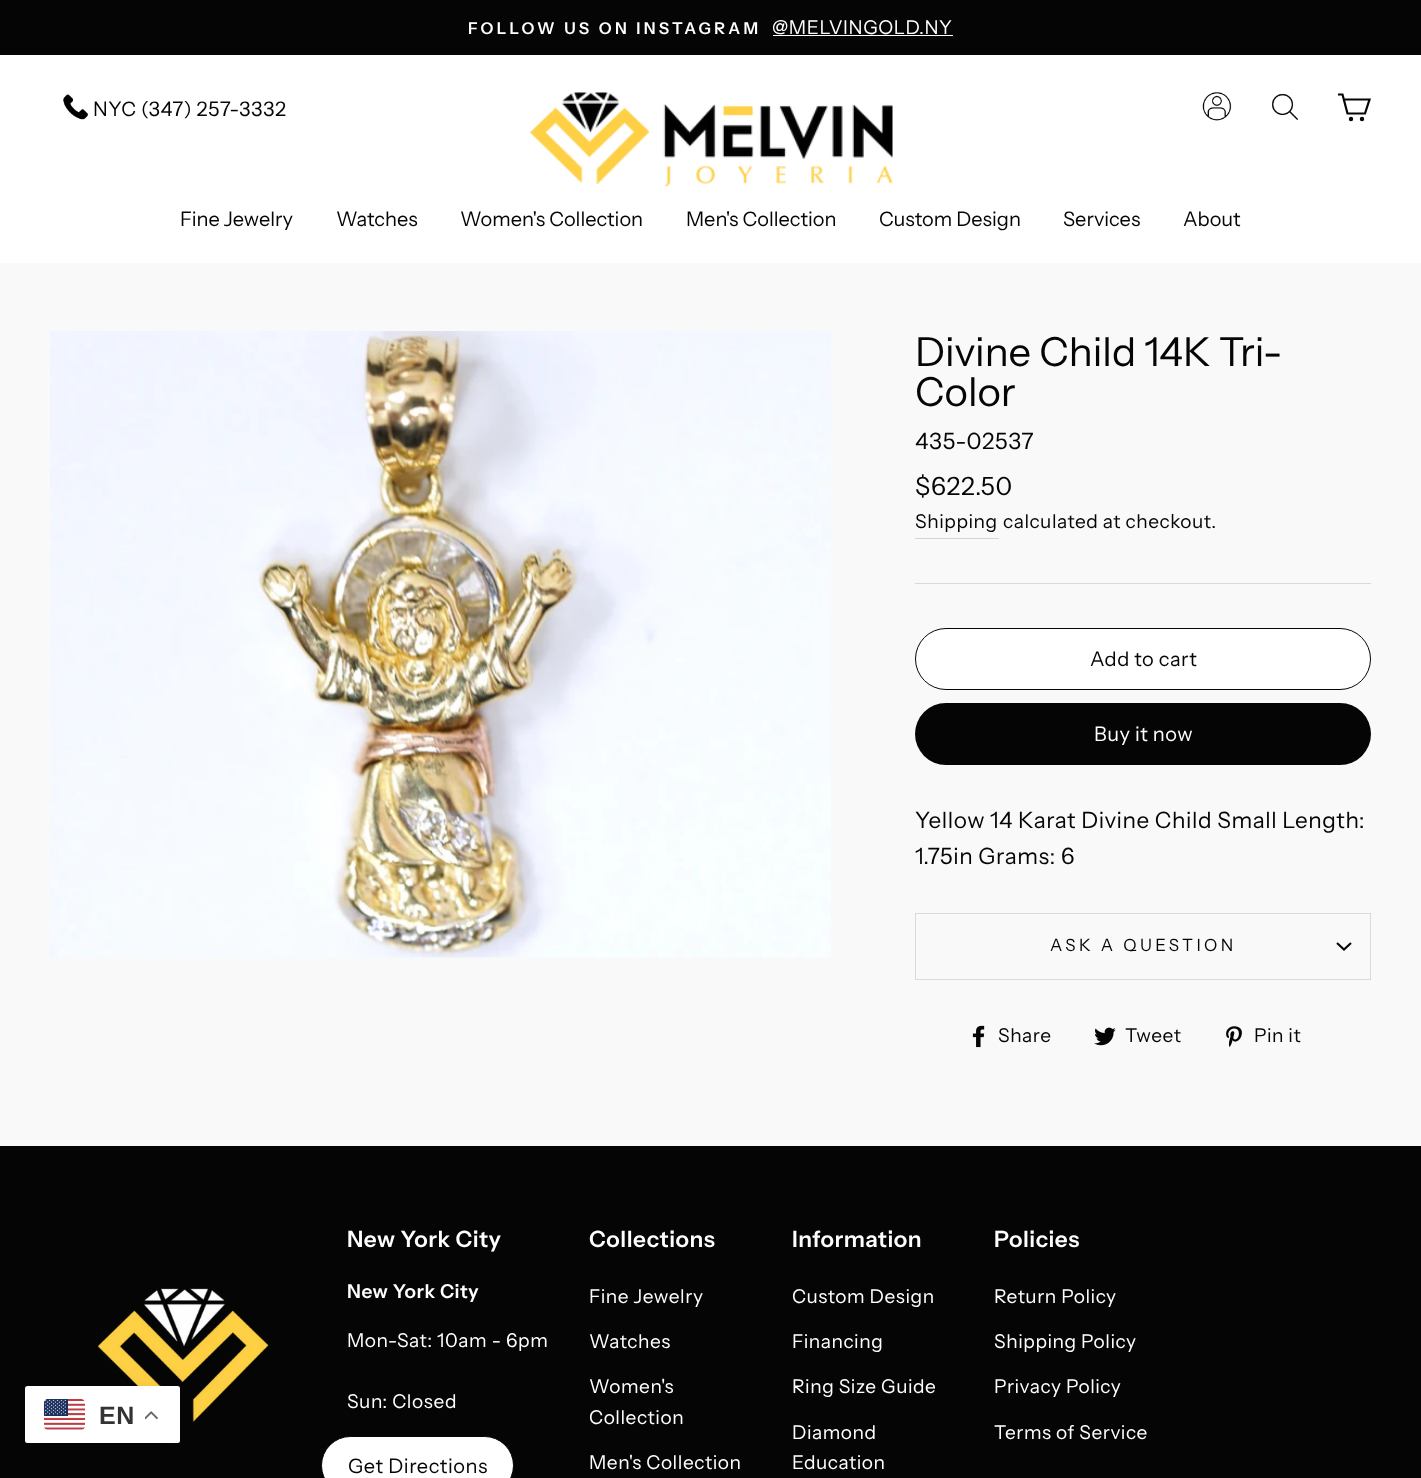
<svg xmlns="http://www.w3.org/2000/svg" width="1421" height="1478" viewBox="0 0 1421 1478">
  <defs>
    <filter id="blur1" x="-50%" y="-200%" width="200%" height="500%"><feGaussianBlur stdDeviation="9.5"/></filter>
  </defs>
  <rect width="100%" height="100%" fill="#f9f9f9"/>
  <rect x="0" y="0" width="1421" height="55" fill="#050505"/>
  <text x="468" y="34" font-family="Instrument Sans" font-size="16.25" font-weight="600" letter-spacing="3.25" fill="#ffffff">FOLLOW US ON INSTAGRAM</text>
  <text x="772" y="34" font-family="Instrument Sans" font-size="19.1" letter-spacing="0.55" fill="#ffffff">@MELVINGOLD.NY</text>
  <rect x="773" y="35" width="180" height="1" fill="#ffffff"/>
  <rect x="0" y="55" width="1421" height="208" fill="#ffffff"/>
  <image x="63" y="94" width="25" height="26" href="img1.png"/>
  <text x="93" y="116" font-family="Instrument Sans" font-size="20" letter-spacing="0.55" fill="#050505">NYC (347) 257-3332</text>
  <image x="530" y="92" width="363" height="95" href="img2.png"/>
  <image x="1202" y="92" width="30" height="29" href="img3.png"/>
  <image x="1272" y="93" width="26" height="27" href="img4.png"/>
  <path d="M1344 99.5H1369.5L1365 113.5H1347.5L1342.5 94.5H1338" fill="none" stroke="#050505" stroke-width="2.2"/>
  <circle cx="1351" cy="119" r="1.1" fill="none" stroke="#050505" stroke-width="2.2"/>
  <circle cx="1362" cy="119" r="1.1" fill="none" stroke="#050505" stroke-width="2.2"/>
  <text x="180" y="226" font-family="Instrument Sans" font-size="20" fill="#050505">Fine Jewelry</text>
  <text x="336" y="226" font-family="Instrument Sans" font-size="20" fill="#050505">Watches</text>
  <text x="460" y="226" font-family="Instrument Sans" font-size="20" fill="#050505">Women's Collection</text>
  <text x="686" y="226" font-family="Instrument Sans" font-size="20" fill="#050505">Men's Collection</text>
  <text x="879" y="226" font-family="Instrument Sans" font-size="20" fill="#050505">Custom Design</text>
  <text x="1063" y="226" font-family="Instrument Sans" font-size="20" fill="#050505">Services</text>
  <text x="1183" y="226" font-family="Instrument Sans" font-size="20" fill="#050505">About</text>
  <image x="50" y="331" width="781" height="627" href="img5.png"/>
  <text x="915" y="366" font-family="Instrument Sans" font-size="40" fill="#050505">Divine Child 14K Tri-</text>
  <text x="915" y="406" font-family="Instrument Sans" font-size="40" fill="#050505">Color</text>
  <text x="915" y="449" font-family="Instrument Sans" font-size="22.5" letter-spacing="0.55" fill="#050505">435-02537</text>
  <text x="915" y="495" font-family="Instrument Sans" font-size="25" letter-spacing="0.55" fill="#050505">$622.50</text>
  <rect x="915" y="538" width="84" height="1" fill="#d4d4d4"/>
  <text x="915" y="528" font-family="Instrument Sans" font-size="19.1" letter-spacing="0.55" fill="#050505">Shipping</text>
  <text x="1003" y="528" font-family="Instrument Sans" font-size="19.1" letter-spacing="0.55" fill="#050505">calculated at checkout.</text>
  <rect x="915" y="583" width="456" height="1" fill="#d9d9d9"/>
  <rect x="915.5" y="628.5" width="455" height="61" rx="30.5" fill="#ffffff" stroke="#050505"/>
  <text x="1090" y="666" font-family="Instrument Sans" font-size="20" letter-spacing="0.5" fill="#050505">Add to cart</text>
  <rect x="915" y="703" width="456" height="62" rx="31" fill="#050505"/>
  <text x="1094" y="741" font-family="Instrument Sans" font-size="20" letter-spacing="0.5" fill="#ffffff">Buy it now</text>
  <text x="915" y="828" font-family="Instrument Sans" font-size="22.5" letter-spacing="0.55" fill="#050505">Yellow 14 Karat Divine Child Small Length:</text>
  <text x="915" y="864" font-family="Instrument Sans" font-size="22.5" letter-spacing="0.55" fill="#050505">1.75in Grams: 6</text>
  <rect x="915" y="979" width="456" height="1" fill="#d9d9d9"/>
  <rect x="915" y="913" width="456" height="1" fill="#d9d9d9"/>
  <rect x="1370" y="913" width="1" height="66" fill="#d9d9d9"/>
  <rect x="915" y="913" width="1" height="66" fill="#d9d9d9"/>
  <text x="1050" y="951" font-family="Instrument Sans" font-size="16.9" letter-spacing="3.4" fill="#050505">ASK A QUESTION</text>
  <path d="M1337 943L1344 949.5L1351 943" fill="none" stroke="#050505" stroke-width="2.1"/>
  <image x="972" y="1025" width="13" height="23" href="img6.png"/>
  <text x="998" y="1042" font-family="Instrument Sans" font-size="19.1" letter-spacing="0.55" fill="#050505">Share</text>
  <image x="1094" y="1027" width="22" height="19" href="img7.png"/>
  <text x="1125" y="1042" font-family="Instrument Sans" font-size="19.1" letter-spacing="0.55" fill="#050505">Tweet</text>
  <image x="1226" y="1026" width="16" height="21" href="img8.png"/>
  <text x="1254" y="1042" font-family="Instrument Sans" font-size="19.1" letter-spacing="0.55" fill="#050505">Pin it</text>
  <rect x="0" y="1146" width="1421" height="332" fill="#050505"/>
  <image x="97" y="1288" width="172" height="134" href="img9.png"/>
  <text x="347" y="1247" font-family="Instrument Sans" font-size="22.5" font-weight="600" letter-spacing="0.55" fill="#ffffff">New York City</text>
  <text x="347" y="1298" font-family="Instrument Sans" font-size="19.1" font-weight="600" letter-spacing="0.55" fill="#ffffff">New York City</text>
  <text x="347" y="1347" font-family="Instrument Sans" font-size="19.1" letter-spacing="0.55" fill="#ffffff">Mon-Sat: 10am - 6pm</text>
  <text x="347" y="1408" font-family="Instrument Sans" font-size="19.1" letter-spacing="0.55" fill="#ffffff">Sun: Closed</text>
  <rect x="321.5" y="1436.5" width="192" height="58" rx="29" fill="#ffffff" stroke="#050505"/>
  <text x="348" y="1473" font-family="Instrument Sans" font-size="20" letter-spacing="0.55" fill="#050505">Get Directions</text>
  <text x="589" y="1247" font-family="Instrument Sans" font-size="22.5" font-weight="600" letter-spacing="0.55" fill="#ffffff">Collections</text>
  <text x="589" y="1303" font-family="Instrument Sans" font-size="19.1" letter-spacing="0.55" fill="#ffffff">Fine Jewelry</text>
  <text x="589" y="1348" font-family="Instrument Sans" font-size="19.1" letter-spacing="0.55" fill="#ffffff">Watches</text>
  <text x="589" y="1393" font-family="Instrument Sans" font-size="19.1" letter-spacing="0.55" fill="#ffffff">Women's</text>
  <text x="589" y="1424" font-family="Instrument Sans" font-size="19.1" letter-spacing="0.55" fill="#ffffff">Collection</text>
  <text x="589" y="1469" font-family="Instrument Sans" font-size="19.1" letter-spacing="0.55" fill="#ffffff">Men's Collection</text>
  <text x="792" y="1247" font-family="Instrument Sans" font-size="22.5" font-weight="600" letter-spacing="0.55" fill="#ffffff">Information</text>
  <text x="792" y="1303" font-family="Instrument Sans" font-size="19.1" letter-spacing="0.55" fill="#ffffff">Custom Design</text>
  <text x="792" y="1348" font-family="Instrument Sans" font-size="19.1" letter-spacing="0.55" fill="#ffffff">Financing</text>
  <text x="792" y="1393" font-family="Instrument Sans" font-size="19.1" letter-spacing="0.55" fill="#ffffff">Ring Size Guide</text>
  <text x="792" y="1439" font-family="Instrument Sans" font-size="19.1" letter-spacing="0.55" fill="#ffffff">Diamond</text>
  <text x="792" y="1469" font-family="Instrument Sans" font-size="19.1" letter-spacing="0.55" fill="#ffffff">Education</text>
  <text x="994" y="1247" font-family="Instrument Sans" font-size="22.5" font-weight="600" letter-spacing="0.55" fill="#ffffff">Policies</text>
  <text x="994" y="1303" font-family="Instrument Sans" font-size="19.1" letter-spacing="0.55" fill="#ffffff">Return Policy</text>
  <text x="994" y="1348" font-family="Instrument Sans" font-size="19.1" letter-spacing="0.55" fill="#ffffff">Shipping Policy</text>
  <text x="994" y="1393" font-family="Instrument Sans" font-size="19.1" letter-spacing="0.55" fill="#ffffff">Privacy Policy</text>
  <text x="994" y="1439" font-family="Instrument Sans" font-size="19.1" letter-spacing="0.55" fill="#ffffff">Terms of Service</text>
  <rect x="25" y="1393" width="155" height="56" rx="2.5" fill="#000000" fill-opacity="0.15" filter="url(#blur1)"/>
  <rect x="25" y="1386" width="155" height="57" rx="2.5" fill="#ffffff"/>
  <image x="44" y="1399" width="41" height="31" href="img10.png"/>
  <text x="99" y="1424" font-family="Liberation Sans" font-size="25" font-weight="bold" letter-spacing="0.55" fill="#333333">EN</text>
  <image x="145" y="1411" width="13" height="9" href="img11.png"/>
</svg>
